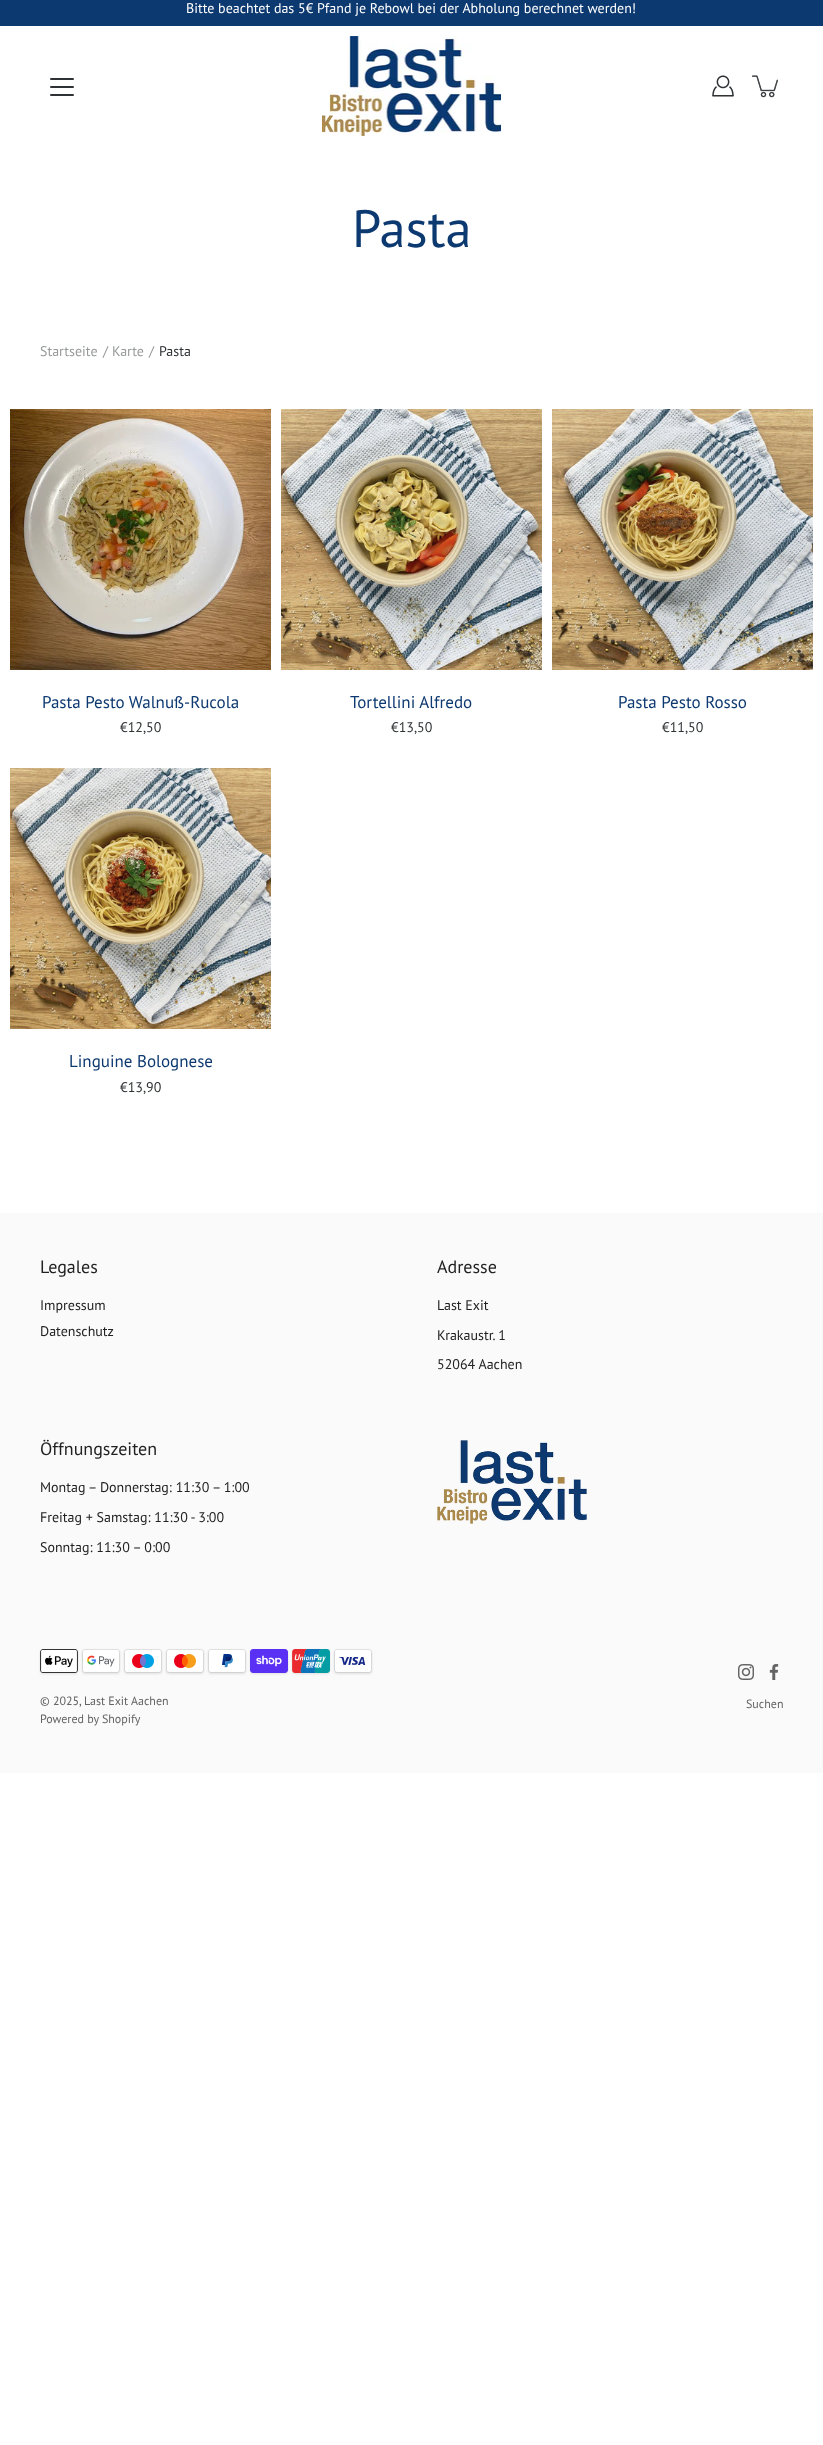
<svg xmlns="http://www.w3.org/2000/svg" width="823" height="2445" viewBox="0 0 823 2445">
  <defs>
    <filter id="blur1" x="-50%" y="-200%" width="200%" height="500%"><feGaussianBlur stdDeviation="1"/></filter>
  </defs>
  <rect width="100%" height="100%" fill="#ffffff"/>
  <rect x="0" y="0" width="823" height="26" fill="#0d3971"/>
  <text x="186" y="13" font-family="PT Sans" font-size="14" fill="#ffffff">Bitte beachtet das 5€ Pfand je Rebowl bei der Abholung berechnet werden!</text>
  <image x="322" y="36" width="179" height="100" href="img1.png"/>
  <rect x="50" y="86" width="24" height="2" rx="1" fill="#2e3234"/>
  <rect x="50" y="78" width="24" height="2" rx="1" fill="#2e3234"/>
  <rect x="50" y="94" width="24" height="2" rx="1" fill="#2e3234"/>
  <image x="712" y="75" width="22" height="22" href="img2.png"/>
  <image x="752" y="75" width="26" height="23" href="img3.png"/>
  <text x="352" y="247" font-family="PT Sans" font-size="52.5" fill="#0d3971">Pasta</text>
  <text x="40" y="356" font-family="PT Sans" font-size="14" fill="#97999a">Startseite</text>
  <text x="103" y="356" font-family="PT Sans" font-size="14" fill="#97999a">/</text>
  <text x="112" y="356" font-family="PT Sans" font-size="14" fill="#97999a">Karte</text>
  <text x="149" y="356" font-family="PT Sans" font-size="14" fill="#97999a">/</text>
  <text x="159" y="356" font-family="PT Sans" font-size="14" fill="#2e3234">Pasta</text>
  <image x="10" y="409" width="261" height="261" href="img4.png"/>
  <text x="42" y="708" font-family="PT Sans" font-size="17" fill="#0d3971">Pasta Pesto Walnuß-Rucola</text>
  <text x="120" y="732" font-family="PT Sans" font-size="14" fill="#2e3234">€12,50</text>
  <image x="281" y="409" width="261" height="261" href="img5.png"/>
  <text x="350" y="708" font-family="PT Sans" font-size="17" fill="#0d3971">Tortellini Alfredo</text>
  <text x="391" y="732" font-family="PT Sans" font-size="14" fill="#2e3234">€13,50</text>
  <image x="552" y="409" width="261" height="261" href="img6.png"/>
  <text x="618" y="708" font-family="PT Sans" font-size="17" fill="#0d3971">Pasta Pesto Rosso</text>
  <text x="662" y="732" font-family="PT Sans" font-size="14" fill="#2e3234">€11,50</text>
  <image x="10" y="768" width="261" height="261" href="img7.png"/>
  <text x="69" y="1067" font-family="PT Sans" font-size="17" fill="#0d3971">Linguine Bolognese</text>
  <text x="120" y="1092" font-family="PT Sans" font-size="14" fill="#2e3234">€13,90</text>
  <rect x="0" y="1213" width="823" height="560" fill="#fafafa"/>
  <text x="40" y="1273" font-family="PT Sans" font-size="18" fill="#222222">Legales</text>
  <text x="40" y="1310" font-family="PT Sans" font-size="14" fill="#222222">Impressum</text>
  <text x="40" y="1336" font-family="PT Sans" font-size="14" fill="#222222">Datenschutz</text>
  <text x="437" y="1273" font-family="PT Sans" font-size="18" fill="#222222">Adresse</text>
  <text x="437" y="1310" font-family="PT Sans" font-size="14" fill="#222222">Last Exit</text>
  <text x="437" y="1340" font-family="PT Sans" font-size="14" fill="#222222">Krakaustr. 1</text>
  <text x="437" y="1369" font-family="PT Sans" font-size="14" fill="#222222">52064 Aachen</text>
  <text x="40" y="1455" font-family="PT Sans" font-size="18" fill="#222222">Öffnungszeiten</text>
  <text x="40" y="1492" font-family="PT Sans" font-size="14" fill="#222222">Montag – Donnerstag: 11:30 – 1:00</text>
  <text x="40" y="1522" font-family="PT Sans" font-size="14" fill="#222222">Freitag + Samstag: 11:30 - 3:00</text>
  <text x="40" y="1552" font-family="PT Sans" font-size="14" fill="#222222">Sonntag: 11:30 – 0:00</text>
  <image x="437" y="1440" width="150" height="84" href="img8.png"/>
  <rect x="40" y="1650" width="38" height="24" rx="3" fill="#000000" fill-opacity="0.1" filter="url(#blur1)"/>
  <image x="40" y="1649" width="38" height="24" href="img9.png"/>
  <rect x="82" y="1650" width="38" height="24" rx="3" fill="#000000" fill-opacity="0.1" filter="url(#blur1)"/>
  <image x="82" y="1649" width="38" height="24" href="img10.png"/>
  <rect x="124" y="1650" width="38" height="24" rx="3" fill="#000000" fill-opacity="0.1" filter="url(#blur1)"/>
  <image x="124" y="1649" width="38" height="24" href="img11.png"/>
  <rect x="166" y="1650" width="38" height="24" rx="3" fill="#000000" fill-opacity="0.1" filter="url(#blur1)"/>
  <image x="166" y="1649" width="38" height="24" href="img12.png"/>
  <rect x="208" y="1650" width="38" height="24" rx="3" fill="#000000" fill-opacity="0.1" filter="url(#blur1)"/>
  <image x="208" y="1649" width="38" height="24" href="img13.png"/>
  <rect x="250" y="1650" width="38" height="24" rx="3" fill="#000000" fill-opacity="0.1" filter="url(#blur1)"/>
  <image x="250" y="1649" width="38" height="24" href="img14.png"/>
  <rect x="292" y="1650" width="38" height="24" rx="3" fill="#000000" fill-opacity="0.1" filter="url(#blur1)"/>
  <image x="292" y="1649" width="38" height="24" href="img15.png"/>
  <rect x="334" y="1650" width="38" height="24" rx="3" fill="#000000" fill-opacity="0.1" filter="url(#blur1)"/>
  <image x="334" y="1649" width="38" height="24" href="img16.png"/>
  <text x="40" y="1705" font-family="PT Sans" font-size="12" fill="#636363">© 2025, Last Exit Aachen</text>
  <text x="40" y="1723" font-family="PT Sans" font-size="12" fill="#636363">Powered by Shopify</text>
  <image x="738" y="1664" width="16" height="16" href="img17.png"/>
  <image x="769" y="1664" width="10" height="16" href="img18.png"/>
  <text x="746" y="1708" font-family="PT Sans" font-size="12" fill="#636363">Suchen</text>
</svg>
